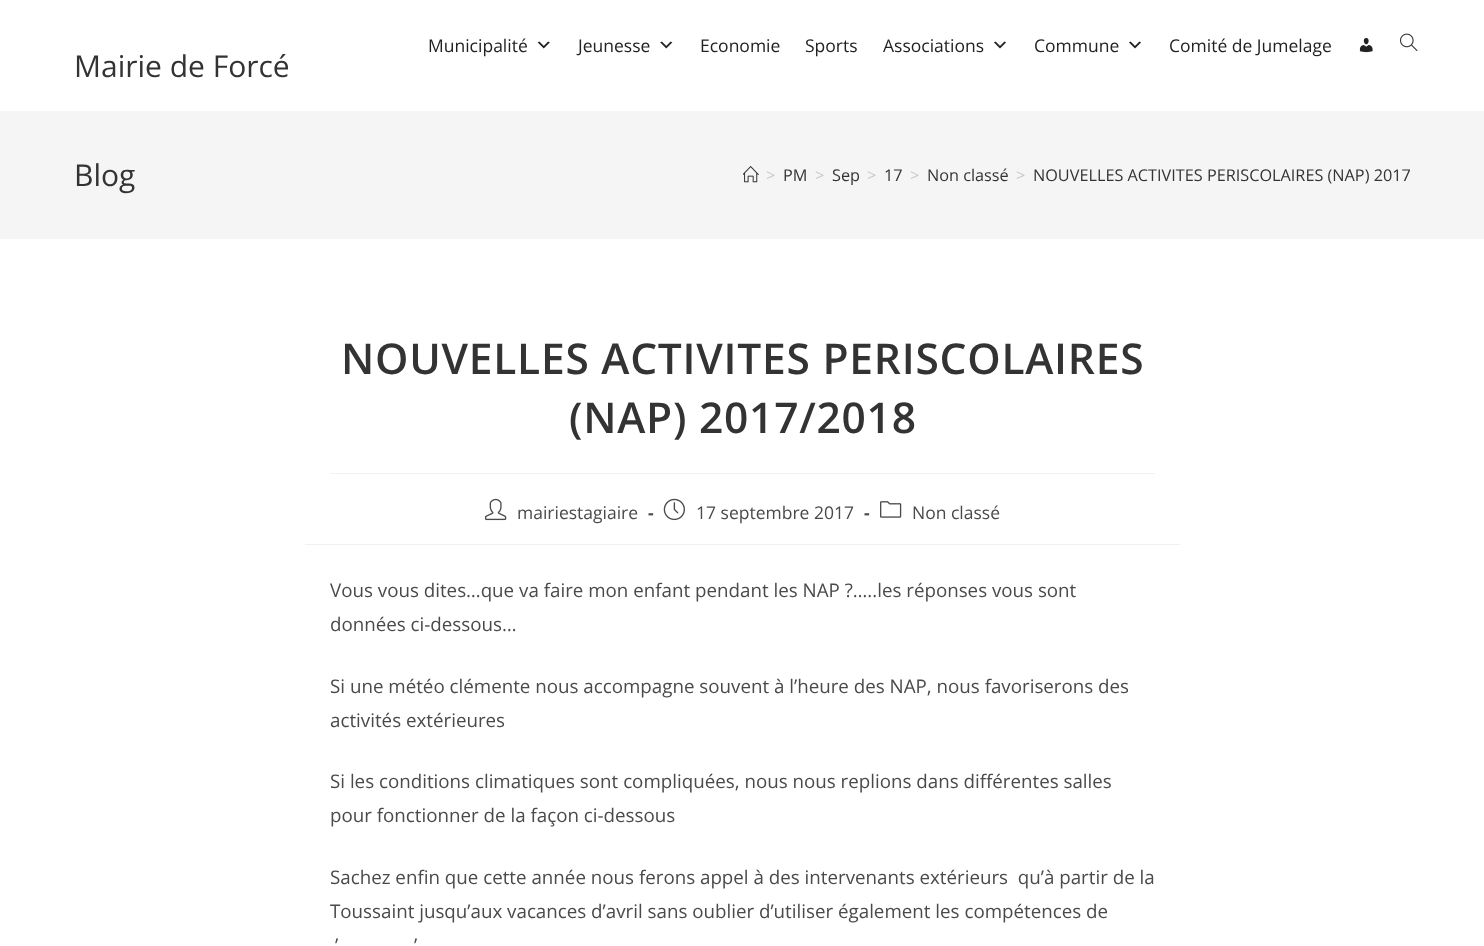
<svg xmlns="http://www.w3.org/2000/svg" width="1484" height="946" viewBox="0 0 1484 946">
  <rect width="100%" height="100%" fill="#ffffff"/>
  <text x="428" y="52" font-family="Open Sans" font-size="17.5" fill="#222222">Municipalité</text>
  <image x="537" y="41" width="13" height="8" href="img1.png"/>
  <text x="578" y="52" font-family="Open Sans" font-size="17.5" fill="#222222">Jeunesse</text>
  <image x="660" y="41" width="13" height="8" href="img2.png"/>
  <text x="700" y="52" font-family="Open Sans" font-size="17.5" fill="#222222">Economie</text>
  <text x="805" y="52" font-family="Open Sans" font-size="17.5" fill="#222222">Sports</text>
  <text x="883" y="52" font-family="Open Sans" font-size="17.5" fill="#222222">Associations</text>
  <image x="994" y="41" width="12" height="8" href="img3.png"/>
  <text x="1034" y="52" font-family="Open Sans" font-size="17.5" fill="#222222">Commune</text>
  <image x="1129" y="41" width="12" height="8" href="img3.png"/>
  <text x="1169" y="52" font-family="Open Sans" font-size="17.5" fill="#222222">Comité de Jumelage</text>
  <image x="1359" y="38" width="14" height="15" href="img4.png"/>
  <image x="1400" y="33" width="18" height="18" href="img5.png"/>
  <text x="74" y="77" font-family="Open Sans" font-size="30" fill="#333333">Mairie de Forcé</text>
  <rect x="0" y="111" width="1484" height="128" fill="#f5f5f5"/>
  <text x="74" y="186" font-family="Open Sans" font-size="30" fill="#333333">Blog</text>
  <image x="743" y="166" width="16" height="17" href="img6.png"/>
  <text x="766" y="181" font-family="Open Sans" font-size="16.25" fill="#c6c6c6">&gt;</text>
  <text x="783" y="181" font-family="Open Sans" font-size="16.25" fill="#333333">PM</text>
  <text x="815" y="181" font-family="Open Sans" font-size="16.25" fill="#c6c6c6">&gt;</text>
  <text x="832" y="181" font-family="Open Sans" font-size="16.25" fill="#333333">Sep</text>
  <text x="867" y="181" font-family="Open Sans" font-size="16.25" fill="#c6c6c6">&gt;</text>
  <text x="884" y="181" font-family="Open Sans" font-size="16.25" fill="#333333">17</text>
  <text x="910" y="181" font-family="Open Sans" font-size="16.25" fill="#c6c6c6">&gt;</text>
  <text x="927" y="181" font-family="Open Sans" font-size="16.25" fill="#333333">Non classé</text>
  <text x="1016" y="181" font-family="Open Sans" font-size="16.25" fill="#c6c6c6">&gt;</text>
  <text x="1033" y="181" font-family="Open Sans" font-size="16.25" fill="#333333">NOUVELLES ACTIVITES PERISCOLAIRES (NAP) 2017</text>
  <rect x="330" y="473" width="825" height="1" fill="#f1f1f1"/>
  <text x="341" y="374" font-family="Open Sans" font-size="42.5" font-weight="600" letter-spacing="0.75" fill="#333333">NOUVELLES ACTIVITES PERISCOLAIRES</text>
  <text x="569" y="433" font-family="Open Sans" font-size="42.5" font-weight="600" letter-spacing="0.75" fill="#333333">(NAP) 2017/2018</text>
  <rect x="305" y="544" width="875" height="1" fill="#f1f1f1"/>
  <image x="485" y="498" width="22" height="23" href="img7.png"/>
  <text x="517" y="519" font-family="Open Sans" font-size="17.5" fill="#4a4a4a">mairiestagiaire</text>
  <text x="648" y="519" font-family="Open Sans" font-size="17.5" font-weight="bold" fill="#4a4a4a">-</text>
  <image x="663" y="498" width="22" height="23" href="img8.png"/>
  <text x="696" y="519" font-family="Open Sans" font-size="17.5" fill="#4a4a4a">17 septembre 2017</text>
  <text x="864" y="519" font-family="Open Sans" font-size="17.5" font-weight="bold" fill="#4a4a4a">-</text>
  <image x="880" y="501" width="22" height="17" href="img9.png"/>
  <text x="912" y="519" font-family="Open Sans" font-size="17.5" fill="#4a4a4a">Non classé</text>
  <text x="330" y="597" font-family="Open Sans" font-size="18.75" fill="#4a4a4a">Vous vous dites…que va faire mon enfant pendant les NAP ?…..les réponses vous sont</text>
  <text x="330" y="631" font-family="Open Sans" font-size="18.75" fill="#4a4a4a">données ci-dessous…</text>
  <text x="330" y="693" font-family="Open Sans" font-size="18.75" fill="#4a4a4a">Si une météo clémente nous accompagne souvent à l’heure des NAP, nous favoriserons des</text>
  <text x="330" y="727" font-family="Open Sans" font-size="18.75" fill="#4a4a4a">activités extérieures</text>
  <text x="330" y="788" font-family="Open Sans" font-size="18.75" fill="#4a4a4a">Si les conditions climatiques sont compliquées, nous nous replions dans différentes salles</text>
  <text x="330" y="822" font-family="Open Sans" font-size="18.75" fill="#4a4a4a">pour fonctionner de la façon ci-dessous</text>
  <text x="330" y="884" font-family="Open Sans" font-size="18.75" fill="#4a4a4a" xml:space="preserve">Sachez enfin que cette année nous ferons appel à des intervenants extérieurs  qu’à partir de la</text>
  <text x="330" y="918" font-family="Open Sans" font-size="18.75" fill="#4a4a4a">Toussaint jusqu’aux vacances d’avril sans oublier d’utiliser également les compétences de</text>
  <text x="335" y="952" font-family="Open Sans" font-size="18.75" fill="#4a4a4a">’</text>
  <text x="414" y="952" font-family="Open Sans" font-size="18.75" fill="#4a4a4a">’</text>
</svg>
